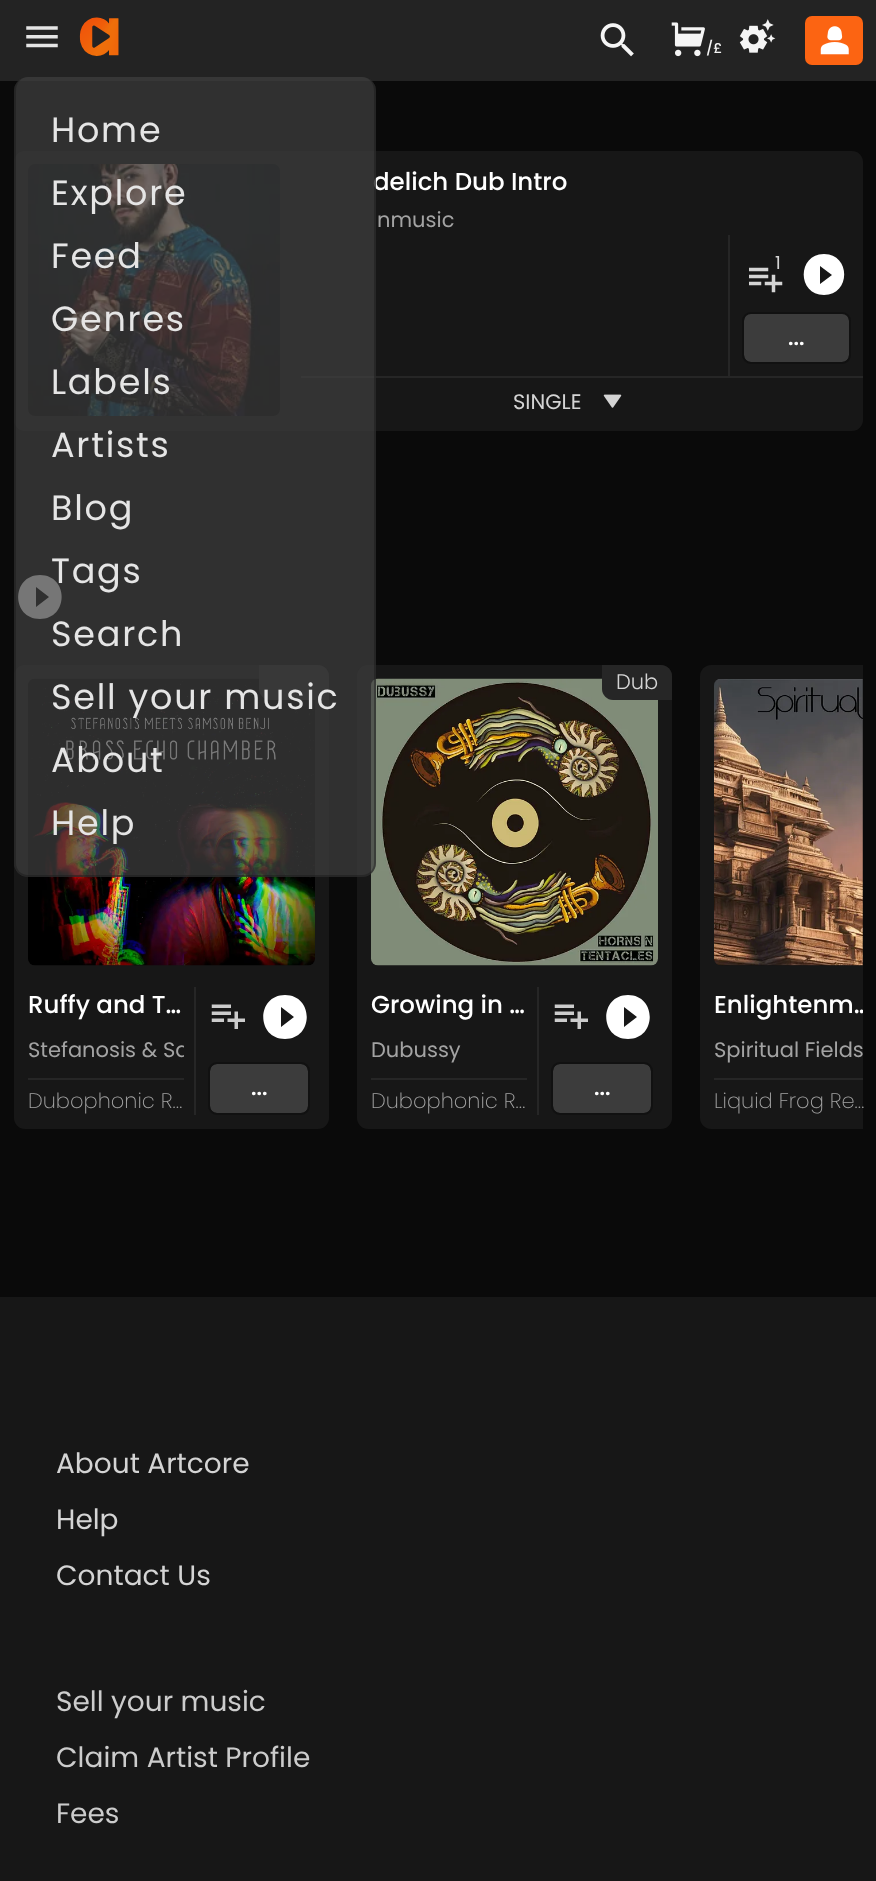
<svg xmlns="http://www.w3.org/2000/svg" width="876" height="1881" viewBox="0 0 876 1881">
  <defs>
    <clipPath id="clip1"><rect x="28" y="1036" width="156" height="28"/></clipPath>
    <clipPath id="clip2"><rect x="714" y="987" width="149" height="35"/></clipPath>
  </defs>
  <rect width="100%" height="100%" fill="#0a0a0a"/>
  <rect x="0" y="0" width="876" height="81" fill="#232323"/>
  <image x="26" y="26" width="32" height="22" href="img1.png"/>
  <image x="79" y="17" width="40" height="39" href="img2.png"/>
  <image x="600" y="23" width="34" height="34" href="img3.png"/>
  <image x="671" y="22" width="34" height="35" href="img4.png"/>
  <text x="706" y="53" font-family="Poppins" font-size="14" font-weight="500" fill="#f5f5f5">/£</text>
  <image x="739" y="19" width="37" height="34" href="img5.png"/>
  <rect x="805" y="16" width="58" height="49" rx="7" fill="#fc6412"/>
  <image x="820" y="26" width="29" height="29" href="img6.png"/>
  <rect x="14" y="151" width="849" height="280" rx="11" fill="#171717"/>
  <image x="28" y="164" width="252" height="252" href="img7.png"/>
  <text x="373" y="190" font-family="Poppins" font-size="24.5" font-weight="500" fill="#ffffff">delich Dub Intro</text>
  <rect x="301" y="376" width="562" height="2" fill="#262626"/>
  <path d="M40 575C11 575 11 619 40 619C69 619 69 575 40 575ZM36 607V587L49 597Z" fill="#f3f3f3"/>
  <rect x="14" y="665" width="315" height="464" rx="11" fill="#171717"/>
  <image x="28" y="678" width="287" height="288" href="img10.png"/>
  <path d="M259 665H318C324 665 329 670 329 676V700H270C264 700 259 695 259 689Z" fill="#262626"/>
  <rect x="357" y="665" width="315" height="464" rx="11" fill="#171717"/>
  <image x="371" y="678" width="287" height="288" href="img12.png"/>
  <rect x="14" y="77" width="362" height="800" rx="14" fill="#404040" fill-opacity="0.7"/>
  <path d="M28 77H362C370 77 376 83 376 91V863C376 870 370 877 362 877H28C20 877 14 870 14 863V91C14 83 20 77 28 77ZM28 77H362C369 77 374 83 374 91V863C374 870 369 875 362 875H28C21 875 16 870 16 863V91C16 83 21 77 28 77Z" fill="#171717" fill-opacity="0.4" fill-rule="evenodd"/>
  <text x="51" y="142" font-family="Poppins" font-size="35" letter-spacing="1.75" fill="#e5e5e5">Home</text>
  <text x="51" y="205" font-family="Poppins" font-size="35" letter-spacing="1.75" fill="#e5e5e5">Explore</text>
  <text x="51" y="268" font-family="Poppins" font-size="35" letter-spacing="1.75" fill="#e5e5e5">Feed</text>
  <text x="51" y="331" font-family="Poppins" font-size="35" letter-spacing="1.75" fill="#e5e5e5">Genres</text>
  <text x="51" y="394" font-family="Poppins" font-size="35" letter-spacing="1.75" fill="#e5e5e5">Labels</text>
  <text x="51" y="457" font-family="Poppins" font-size="35" letter-spacing="1.75" fill="#e5e5e5">Artists</text>
  <text x="51" y="520" font-family="Poppins" font-size="35" letter-spacing="1.75" fill="#e5e5e5">Blog</text>
  <text x="51" y="583" font-family="Poppins" font-size="35" letter-spacing="1.75" fill="#e5e5e5">Tags</text>
  <text x="51" y="646" font-family="Poppins" font-size="35" letter-spacing="1.75" fill="#e5e5e5">Search</text>
  <text x="51" y="709" font-family="Poppins" font-size="35" letter-spacing="1.75" fill="#e5e5e5">Sell your music</text>
  <text x="51" y="772" font-family="Poppins" font-size="35" letter-spacing="1.75" fill="#e5e5e5">About</text>
  <text x="51" y="835" font-family="Poppins" font-size="35" letter-spacing="1.75" fill="#e5e5e5">Help</text>
  <text x="377" y="227" font-family="Poppins" font-size="21" fill="#a3a3a3">nmusic</text>
  <rect x="728" y="235" width="2" height="141" fill="#262626"/>
  <image x="749" y="267" width="34" height="26" href="img8.png"/>
  <text x="775" y="269" font-family="Poppins" font-size="18" fill="#d4d4d4">1</text>
  <path d="M824 254C797 254 797 295 824 295C851 295 851 254 824 254ZM820 284V266L832 275Z" fill="#ffffff"/>
  <rect x="744" y="313" width="105" height="49" rx="7" fill="#3c3c3c"/>
  <rect x="743" y="313" width="107" height="50" rx="8" fill="none" stroke="#111111" stroke-width="2"/>
  <text x="788" y="345" font-family="Poppins" font-size="21" font-weight="600" fill="#ffffff">...</text>
  <text x="513" y="409" font-family="Poppins" font-size="21" fill="#d4d4d4">SINGLE</text>
  <image x="603" y="394" width="19" height="14" href="img9.png"/>
  <text x="28" y="1013" font-family="Poppins" font-size="24.5" font-weight="500" fill="#ffffff">Ruffy and T…</text>
  <text x="28" y="1057" font-family="Poppins" font-size="21" fill="#a3a3a3">Stefanosis &amp;</text>
  <g clip-path="url(#clip1)">
    <text x="163" y="1057" font-family="Poppins" font-size="21" fill="#a3a3a3">Sa</text>
  </g>
  <rect x="28" y="1078" width="156" height="2" fill="#262626"/>
  <text x="28" y="1108" font-family="Poppins" font-size="21" font-weight="200" fill="#a3a3a3">Dubophonic R…</text>
  <rect x="194" y="987" width="2" height="128" fill="#262626"/>
  <image x="211" y="1004" width="34" height="25" href="img11.png"/>
  <path d="M285 995C256 995 256 1039 285 1039C314 1039 314 995 285 995ZM281 1027V1007L294 1017Z" fill="#ffffff"/>
  <rect x="210" y="1064" width="98" height="49" rx="7" fill="#3c3c3c"/>
  <rect x="209" y="1063" width="100" height="51" rx="8" fill="none" stroke="#111111" stroke-width="2"/>
  <text x="251" y="1095" font-family="Poppins" font-size="21" font-weight="600" fill="#ffffff">...</text>
  <path d="M602 665H661C667 665 672 670 672 676V700H613C607 700 602 695 602 689Z" fill="#262626"/>
  <text x="616" y="689" font-family="Poppins" font-size="21" font-weight="300" fill="#d4d4d4">Dub</text>
  <text x="371" y="1013" font-family="Poppins" font-size="24.5" font-weight="500" fill="#ffffff">Growing in …</text>
  <text x="371" y="1057" font-family="Poppins" font-size="21" fill="#a3a3a3">Dubussy</text>
  <rect x="371" y="1078" width="156" height="2" fill="#262626"/>
  <text x="371" y="1108" font-family="Poppins" font-size="21" font-weight="200" fill="#a3a3a3">Dubophonic R…</text>
  <rect x="537" y="987" width="2" height="128" fill="#262626"/>
  <image x="554" y="1004" width="34" height="25" href="img11.png"/>
  <path d="M628 995C599 995 599 1039 628 1039C657 1039 657 995 628 995ZM624 1027V1007L637 1017Z" fill="#ffffff"/>
  <rect x="553" y="1064" width="98" height="49" rx="7" fill="#3c3c3c"/>
  <rect x="552" y="1063" width="100" height="51" rx="8" fill="none" stroke="#111111" stroke-width="2"/>
  <text x="594" y="1095" font-family="Poppins" font-size="21" font-weight="600" fill="#ffffff">...</text>
  <path d="M711 665H863V1129H711C705 1129 700 1124 700 1118V676C700 670 705 665 711 665Z" fill="#171717"/>
  <image x="714" y="679" width="149" height="287" href="img13.png"/>
  <g clip-path="url(#clip2)">
    <text x="714" y="1013" font-family="Poppins" font-size="24.5" font-weight="500" fill="#ffffff">Enlightenm…</text>
  </g>
  <text x="714" y="1057" font-family="Poppins" font-size="21" fill="#a3a3a3">Spiritual Fields</text>
  <rect x="714" y="1078" width="149" height="2" fill="#262626"/>
  <text x="714" y="1108" font-family="Poppins" font-size="21" font-weight="200" fill="#a3a3a3">Liquid Frog Re…</text>
  <rect x="0" y="1297" width="876" height="584" fill="#171717"/>
  <text x="56" y="1473" font-family="Poppins" font-size="28" fill="#d4d4d4">About Artcore</text>
  <text x="56" y="1529" font-family="Poppins" font-size="28" fill="#d4d4d4">Help</text>
  <text x="56" y="1585" font-family="Poppins" font-size="28" fill="#d4d4d4">Contact Us</text>
  <text x="56" y="1711" font-family="Poppins" font-size="28" fill="#cccccc">Sell your music</text>
  <text x="56" y="1767" font-family="Poppins" font-size="28" fill="#cccccc">Claim Artist Profile</text>
  <text x="56" y="1823" font-family="Poppins" font-size="28" fill="#cccccc">Fees</text>
</svg>
